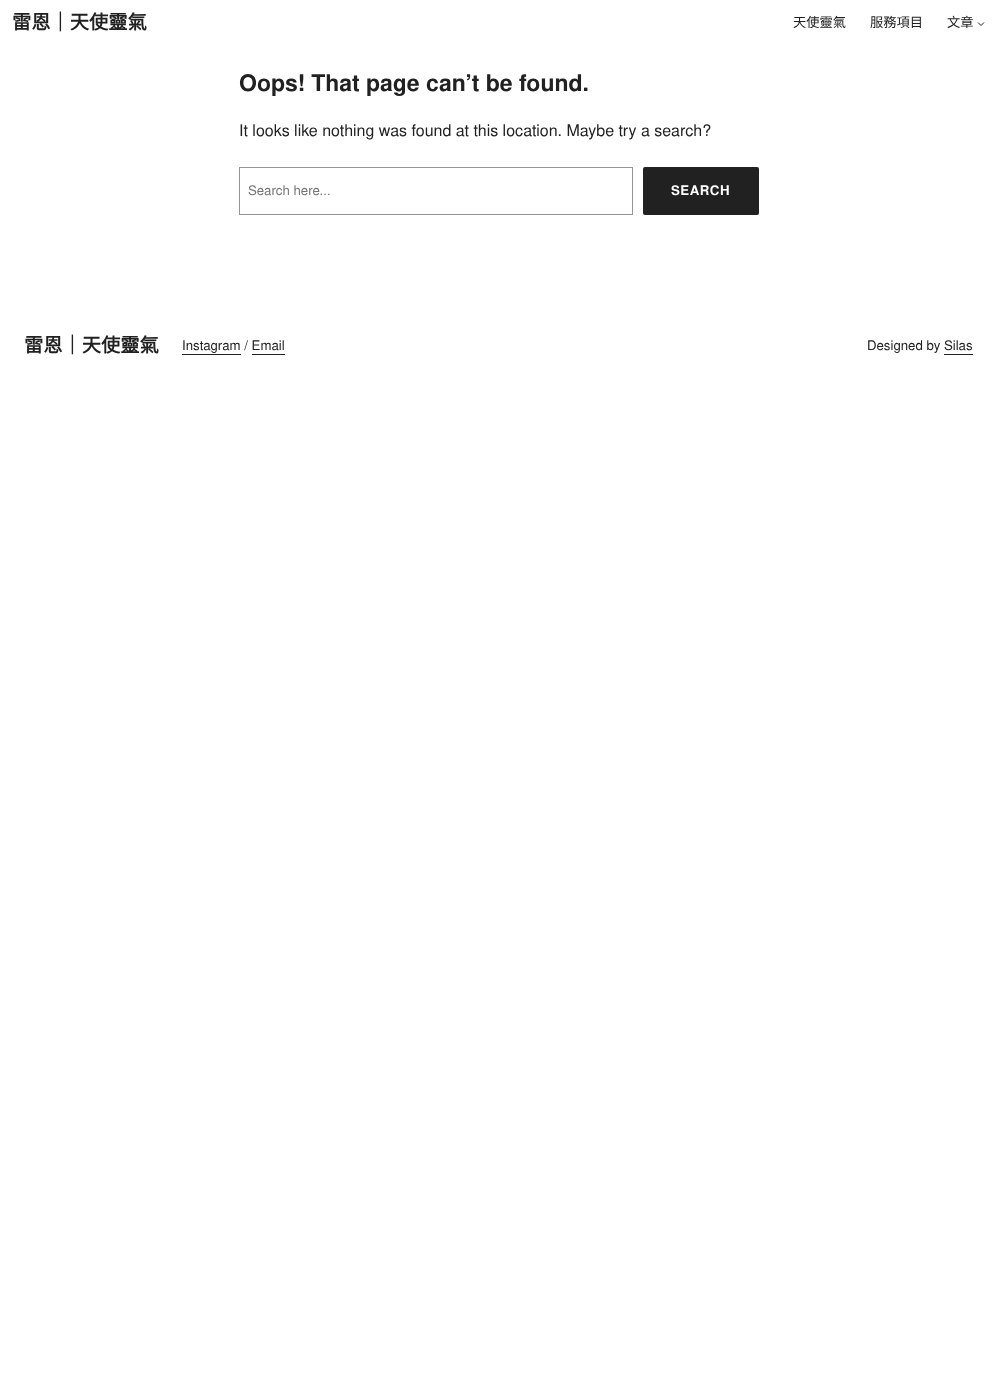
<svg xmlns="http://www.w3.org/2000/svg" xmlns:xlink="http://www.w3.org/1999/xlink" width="997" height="1397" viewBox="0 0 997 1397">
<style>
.cls-1{font:bold 19.25px Noto Sans CJK TC;fill:#212121}
.cls-2{font:13.25px Noto Sans CJK TC;fill:#212121}
.cls-3{font:bold 23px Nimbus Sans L;fill:#212121}
.cls-4{font:16px Nimbus Sans L;fill:#212121}
.cls-5{font:13.25px Nimbus Sans L;fill:#757575}
.cls-6{font:bold 13.25px Nimbus Sans L;letter-spacing:0.5px;fill:#ffffff}
.cls-7{font:13.25px Nimbus Sans L;fill:#212121}
</style>
<rect width="100%" height="100%" fill="#ffffff"/>
<path fill="none" stroke="#212121" d="M978 22.5L981 25.5L984 22.5"/>
<rect fill="none" stroke="#949494" x="239.5" y="167.5" width="393" height="47"/>
<rect fill="#212121" x="643" y="167" width="116" height="48" rx="2"/>
<rect fill="#212121" x="182" y="354" width="59" height="1"/>
<rect fill="#212121" x="252" y="354" width="33" height="1"/>
<rect fill="#212121" x="944" y="354" width="29" height="1"/>
<text class="cls-1" x="12" y="29">雷恩｜天使靈氣</text>
<text class="cls-2" x="793" y="27">天使靈氣</text>
<text class="cls-2" x="870" y="27">服務項目</text>
<text class="cls-2" x="947" y="27">文章</text>
<text class="cls-3" x="239" y="91">Oops! That page can’t be found.</text>
<text class="cls-4" x="239" y="136">It looks like nothing was found at this location. Maybe try a search?</text>
<text class="cls-5" x="248" y="195">Search here...</text>
<text class="cls-6" x="671" y="195">SEARCH</text>
<text class="cls-1" x="24" y="352">雷恩｜天使靈氣</text>
<text class="cls-7" x="182" y="350">Instagram / Email</text>
<text class="cls-7" x="867" y="350">Designed by Silas</text>
</svg>
